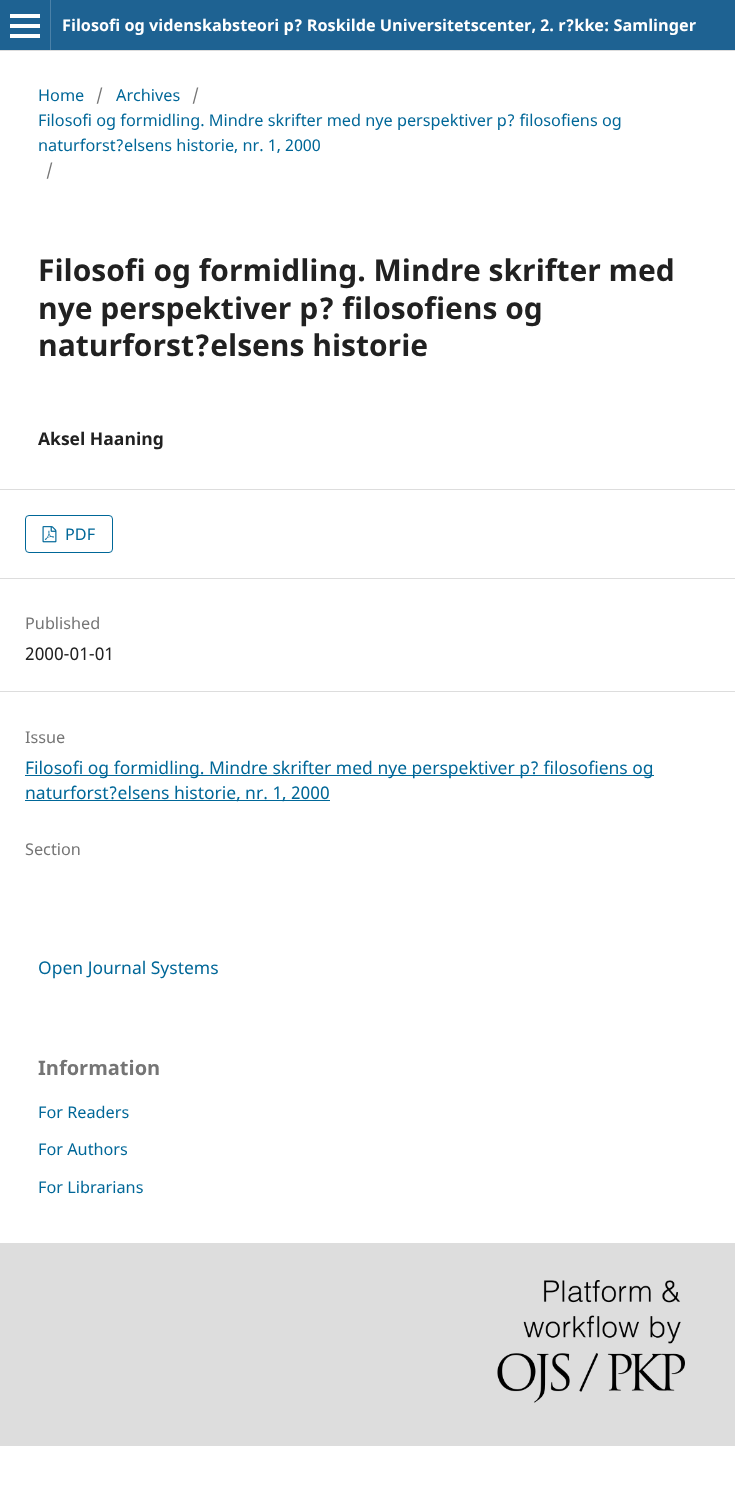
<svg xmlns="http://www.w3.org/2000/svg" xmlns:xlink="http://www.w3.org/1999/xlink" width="735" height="1494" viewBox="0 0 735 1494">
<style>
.cls-1{font:bold 16.25px Noto Sans;fill:#ffffff}
.cls-2{font:16.25px Noto Sans;fill:#006798}
.cls-3{font:16.25px Noto Sans;fill:#757575}
.cls-4{font:bold 30px Noto Sans;fill:#212121}
.cls-5{font:bold 17.5px Noto Sans;fill:#212121}
.cls-6{font:17.5px Noto Sans;fill:#212121}
.cls-7{font:17.5px Noto Sans;fill:#006798}
.cls-8{font:bold 20px Noto Sans;fill:#757575}
</style>
<rect width="100%" height="100%" fill="#ffffff"/>
<rect fill="#1e6292" x="0" y="0" width="735" height="50"/>
<rect fill="#dddddd" x="0" y="50" width="735" height="1"/>
<rect fill="#4b81a8" x="50" y="0" width="1" height="50"/>
<rect fill="#ffffff" x="10" y="34" width="30" height="4"/>
<rect fill="#ffffff" x="10" y="14" width="30" height="4"/>
<rect fill="#ffffff" x="10" y="24" width="30" height="4"/>
<rect fill="#dddddd" x="0" y="489" width="735" height="1"/>
<rect fill="#dddddd" x="0" y="578" width="735" height="1"/>
<rect fill="none" stroke="#006798" x="25.5" y="515.5" width="87" height="37" rx="3.5"/>
<image xlink:href="image0.png" x="42" y="526" width="15" height="17"/>
<rect fill="#dddddd" x="0" y="691" width="735" height="1"/>
<rect fill="#006798" x="25" y="775" width="629" height="1"/>
<rect fill="#006798" x="25" y="800" width="305" height="1"/>
<rect fill="#dddddd" x="0" y="1243" width="735" height="203"/>
<image xlink:href="image1.png" x="497" y="1280" width="188" height="123"/>
<text class="cls-1" x="62" y="31">Filosofi og videnskabsteori p? Roskilde Universitetscenter, 2. r?kke: Samlinger</text>
<text class="cls-2" x="38" y="101">Home</text>
<text class="cls-3" x="96" y="101">/</text>
<text class="cls-2" x="116" y="101">Archives</text>
<text class="cls-3" x="192" y="101">/</text>
<text class="cls-2"><tspan x="38" y="126">Filosofi og formidling. Mindre skrifter med nye perspektiver p? filosofiens og</tspan><tspan x="38" y="151">naturforst?elsens historie, nr. 1, 2000</tspan></text>
<text class="cls-3" x="46" y="176">/</text>
<text class="cls-4"><tspan x="38" y="281">Filosofi og formidling. Mindre skrifter med</tspan><tspan x="38" y="319">nye perspektiver p? filosofiens og</tspan><tspan x="38" y="356">naturforst?elsens historie</tspan></text>
<text class="cls-5" x="38" y="445">Aksel Haaning</text>
<text class="cls-2" x="65" y="540">PDF</text>
<text class="cls-3" x="25" y="629">Published</text>
<text class="cls-6" x="25" y="660">2000-01-01</text>
<text class="cls-3" x="25" y="743">Issue</text>
<text class="cls-7"><tspan x="25" y="774">Filosofi og formidling. Mindre skrifter med nye perspektiver p? filosofiens og</tspan><tspan x="25" y="799">naturforst?elsens historie, nr. 1, 2000</tspan></text>
<text class="cls-3" x="25" y="855">Section</text>
<text class="cls-7" x="38" y="974">Open Journal Systems</text>
<text class="cls-8" x="38" y="1075">Information</text>
<text class="cls-2" x="38" y="1118">For Readers</text>
<text class="cls-2" x="38" y="1155">For Authors</text>
<text class="cls-2" x="38" y="1193">For Librarians</text>
</svg>
